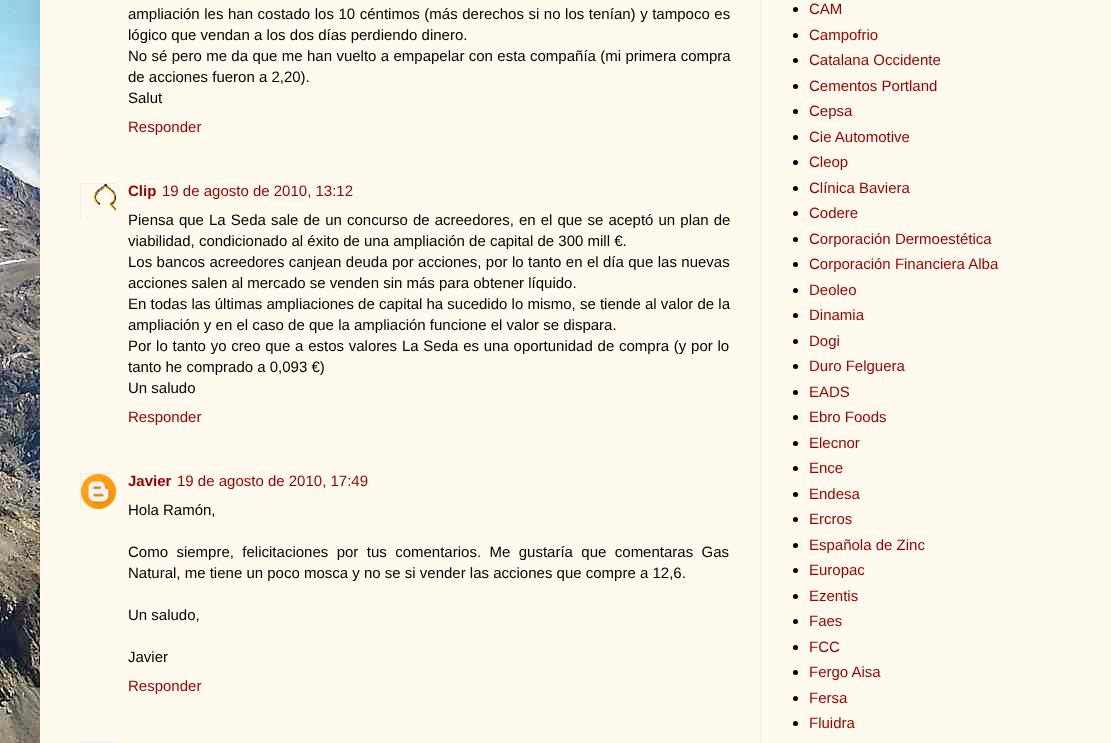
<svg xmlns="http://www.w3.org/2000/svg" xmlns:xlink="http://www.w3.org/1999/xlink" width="1111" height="743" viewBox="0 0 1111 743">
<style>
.cls-1{font:15px Liberation Sans;fill:#000000}
.cls-2{font:15px Liberation Sans;fill:#990000}
.cls-3{font:bold 15px Liberation Sans;fill:#990000}
</style>
<defs>
<clipPath id="clip1"><rect x="80" y="183" width="36" height="36"/></clipPath>
<clipPath id="clip2"><rect x="80" y="473" width="36" height="36"/></clipPath>
</defs>
<rect width="100%" height="100%" fill="#ffffff"/>
<image xlink:href="image0.png" x="0" y="0" width="40" height="743"/>
<rect fill="#000000" fill-opacity="0.15" filter="blur(20px)" x="40" y="-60" width="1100" height="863"/>
<rect fill="#fff9ee" x="40" y="0" width="1071" height="743"/>
<rect fill="#ededed" x="760" y="0" width="1" height="743"/>
<g clip-path="url(#clip1)">
<rect fill="none" stroke="#ededed" x="80.5" y="183.5" width="37" height="37"/>
</g>
<image xlink:href="image1.png" x="93" y="184" width="23" height="28"/>
<g clip-path="url(#clip2)">
<rect fill="none" stroke="#ededed" x="80.5" y="473.5" width="36" height="36"/>
</g>
<image xlink:href="image2.png" x="81" y="474" width="35" height="35"/>
<rect fill="none" stroke="#ededed" x="80.5" y="742.5" width="36" height="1"/>
<circle fill="#000000" cx="795.5" cy="9.5" r="2.5"/>
<circle fill="#000000" cx="795.5" cy="35.5" r="2.5"/>
<circle fill="#000000" cx="795.5" cy="60.5" r="2.5"/>
<circle fill="#000000" cx="795.5" cy="86.5" r="2.5"/>
<circle fill="#000000" cx="795.5" cy="111.5" r="2.5"/>
<circle fill="#000000" cx="795.5" cy="137.5" r="2.5"/>
<circle fill="#000000" cx="795.5" cy="162.5" r="2.5"/>
<circle fill="#000000" cx="795.5" cy="188.5" r="2.5"/>
<circle fill="#000000" cx="795.5" cy="213.5" r="2.5"/>
<circle fill="#000000" cx="795.5" cy="239.5" r="2.5"/>
<circle fill="#000000" cx="795.5" cy="264.5" r="2.5"/>
<circle fill="#000000" cx="795.5" cy="290.5" r="2.5"/>
<circle fill="#000000" cx="795.5" cy="315.5" r="2.5"/>
<circle fill="#000000" cx="795.5" cy="341.5" r="2.5"/>
<circle fill="#000000" cx="795.5" cy="366.5" r="2.5"/>
<circle fill="#000000" cx="795.5" cy="392.5" r="2.5"/>
<circle fill="#000000" cx="795.5" cy="417.5" r="2.5"/>
<circle fill="#000000" cx="795.5" cy="443.5" r="2.5"/>
<circle fill="#000000" cx="795.5" cy="468.5" r="2.5"/>
<circle fill="#000000" cx="795.5" cy="494.5" r="2.5"/>
<circle fill="#000000" cx="795.5" cy="519.5" r="2.5"/>
<circle fill="#000000" cx="795.5" cy="545.5" r="2.5"/>
<circle fill="#000000" cx="795.5" cy="570.5" r="2.5"/>
<circle fill="#000000" cx="795.5" cy="596.5" r="2.5"/>
<circle fill="#000000" cx="795.5" cy="621.5" r="2.5"/>
<circle fill="#000000" cx="795.5" cy="647.5" r="2.5"/>
<circle fill="#000000" cx="795.5" cy="672.5" r="2.5"/>
<circle fill="#000000" cx="795.5" cy="698.5" r="2.5"/>
<circle fill="#000000" cx="795.5" cy="723.5" r="2.5"/>
<text class="cls-1"><tspan x="128" y="19" word-spacing="0.4">ampliación les han costado los 10 céntimos (más derechos si no los tenían) y tampoco es</tspan><tspan x="128" y="40">lógico que vendan a los dos días perdiendo dinero.</tspan><tspan x="128" y="61" word-spacing="0.2">No sé pero me da que me han vuelto a empapelar con esta compañía (mi primera compra</tspan><tspan x="128" y="82">de acciones fueron a 2,20).</tspan><tspan x="128" y="103">Salut</tspan></text>
<text class="cls-2" x="128" y="132">Responder</text>
<text class="cls-3" x="128" y="196">Clip</text>
<text class="cls-2" x="162" y="196">19 de agosto de 2010, 13:12</text>
<text class="cls-1"><tspan x="128" y="225" word-spacing="0.9">Piensa que La Seda sale de un concurso de acreedores, en el que se aceptó un plan de</tspan><tspan x="128" y="246">viabilidad, condicionado al éxito de una ampliación de capital de 300 mill €.</tspan><tspan x="128" y="267" word-spacing="0.25">Los bancos acreedores canjean deuda por acciones, por lo tanto en el día que las nuevas</tspan><tspan x="128" y="288">acciones salen al mercado se venden sin más para obtener líquido.</tspan><tspan x="128" y="309">En todas las últimas ampliaciones de capital ha sucedido lo mismo, se tiende al valor de la</tspan><tspan x="128" y="330">ampliación y en el caso de que la ampliación funcione el valor se dispara.</tspan><tspan x="128" y="351" word-spacing="0.6">Por lo tanto yo creo que a estos valores La Seda es una oportunidad de compra (y por lo</tspan><tspan x="128" y="372">tanto he comprado a 0,093 €)</tspan><tspan x="128" y="393">Un saludo</tspan></text>
<text class="cls-2" x="128" y="422">Responder</text>
<text class="cls-3" x="128" y="486">Javier</text>
<text class="cls-2" x="177" y="486">19 de agosto de 2010, 17:49</text>
<text class="cls-1" x="128" y="515">Hola Ramón,</text>
<text class="cls-1"><tspan x="128" y="557" word-spacing="4.25">Como siempre, felicitaciones por tus comentarios. Me gustaría que comentaras Gas</tspan><tspan x="128" y="578">Natural, me tiene un poco mosca y no se si vender las acciones que compre a 12,6.</tspan></text>
<text class="cls-1" x="128" y="620">Un saludo,</text>
<text class="cls-1" x="128" y="662">Javier</text>
<text class="cls-2" x="128" y="691">Responder</text>
<text class="cls-2"><tspan x="809" y="14">CAM</tspan><tspan x="809" y="40">Campofrio</tspan><tspan x="809" y="65">Catalana Occidente</tspan><tspan x="809" y="91">Cementos Portland</tspan><tspan x="809" y="116">Cepsa</tspan><tspan x="809" y="142">Cie Automotive</tspan><tspan x="809" y="167">Cleop</tspan><tspan x="809" y="193">Clínica Baviera</tspan><tspan x="809" y="218">Codere</tspan><tspan x="809" y="244">Corporación Dermoestética</tspan><tspan x="809" y="269">Corporación Financiera Alba</tspan><tspan x="809" y="295">Deoleo</tspan><tspan x="809" y="320">Dinamia</tspan><tspan x="809" y="346">Dogi</tspan><tspan x="809" y="371">Duro Felguera</tspan><tspan x="809" y="397">EADS</tspan><tspan x="809" y="422">Ebro Foods</tspan><tspan x="809" y="448">Elecnor</tspan><tspan x="809" y="473">Ence</tspan><tspan x="809" y="499">Endesa</tspan><tspan x="809" y="524">Ercros</tspan><tspan x="809" y="550">Española de Zinc</tspan><tspan x="809" y="575">Europac</tspan><tspan x="809" y="601">Ezentis</tspan><tspan x="809" y="626">Faes</tspan><tspan x="809" y="652">FCC</tspan><tspan x="809" y="677">Fergo Aisa</tspan><tspan x="809" y="703">Fersa</tspan><tspan x="809" y="728">Fluidra</tspan></text>
</svg>
